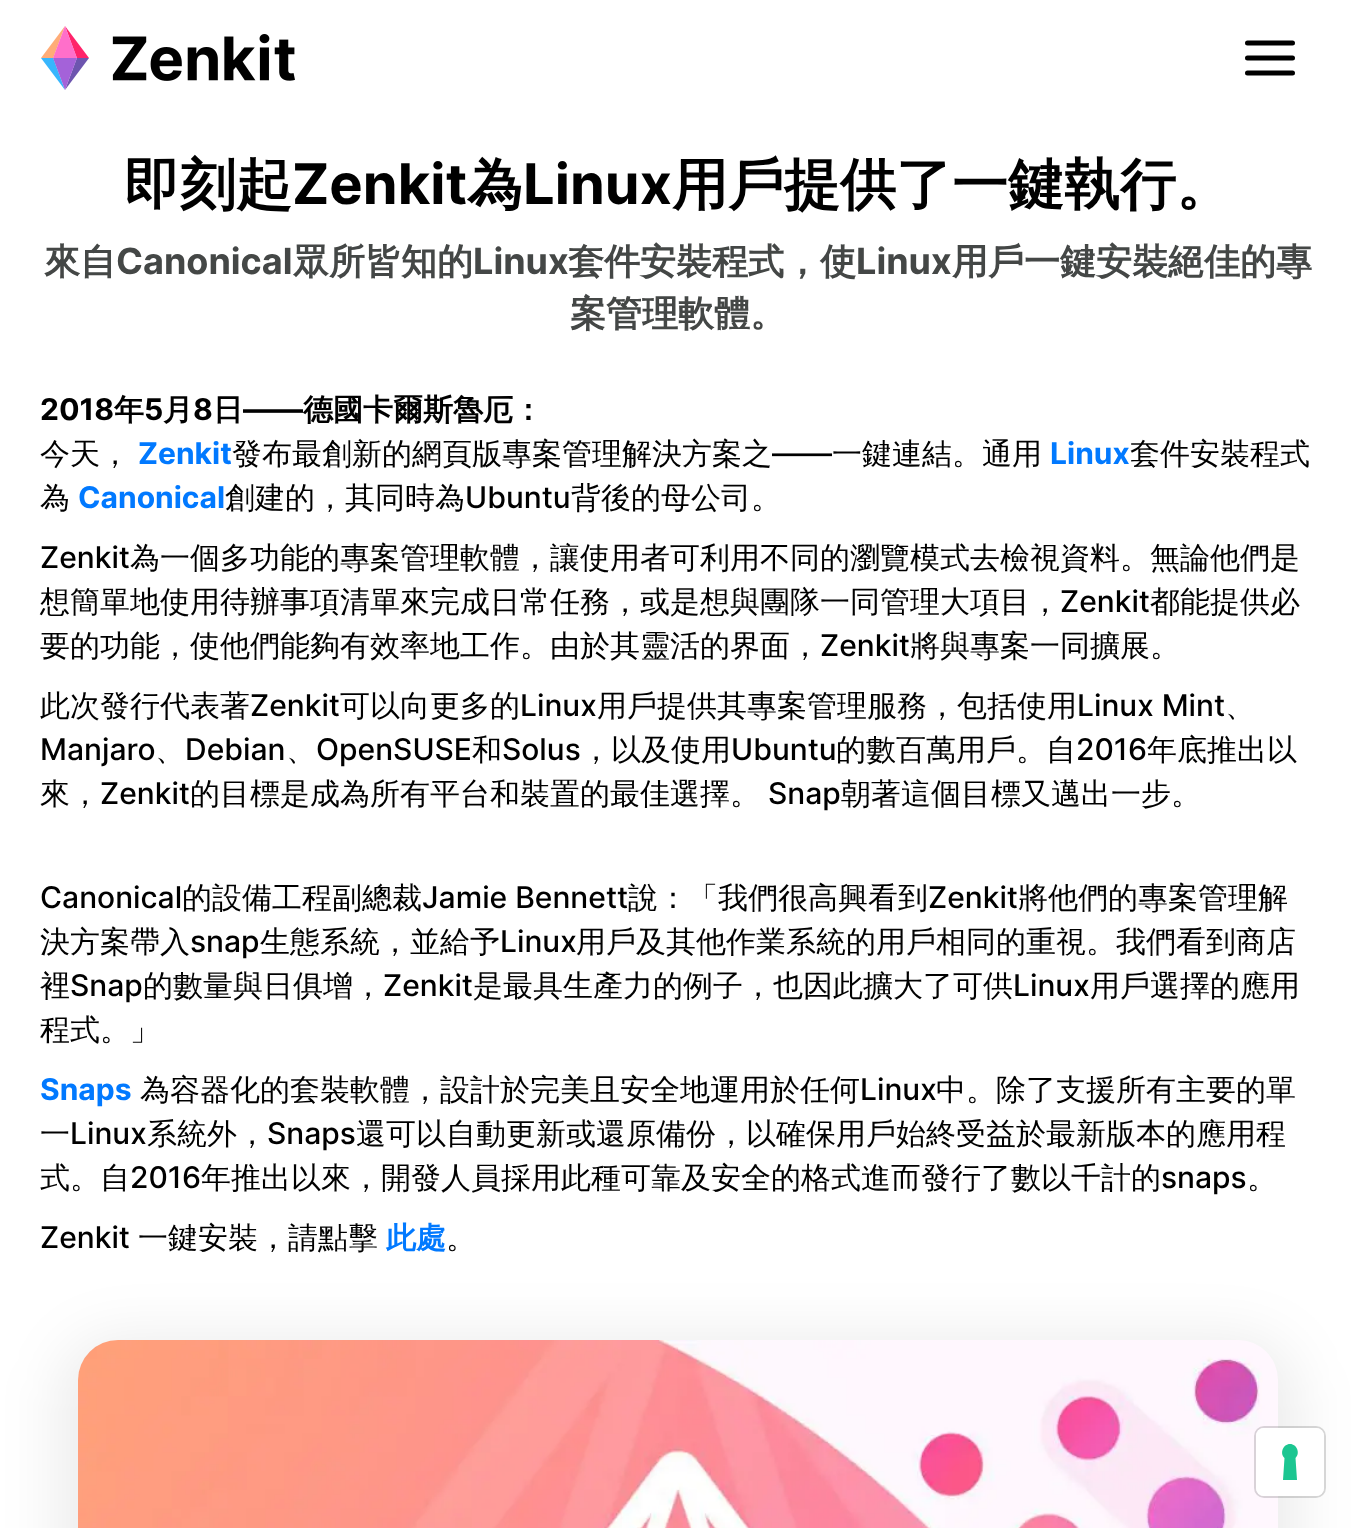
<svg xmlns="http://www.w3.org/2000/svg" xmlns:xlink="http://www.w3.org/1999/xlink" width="1355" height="1528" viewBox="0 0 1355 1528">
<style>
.cls-1{font:bold 56px WenQuanYi Zen Hei;fill:#000000}
.cls-2{font:bold 56px Inter;fill:#000000}
.cls-3{font:bold 36px WenQuanYi Zen Hei;fill:#444746}
.cls-4{font:bold 36px Inter;fill:#444746}
.cls-5{font:bold 30px Inter;fill:#000000}
.cls-6{font:bold 30px WenQuanYi Zen Hei;fill:#000000}
.cls-7{font:500 30px WenQuanYi Zen Hei;fill:#000000}
.cls-8{font:bold 30px Inter;fill:#0179ff}
.cls-9{font:500 30px Inter;fill:#000000}
.cls-10{font:bold 30px WenQuanYi Zen Hei;fill:#0179ff}
</style>
<rect width="100%" height="100%" fill="#ffffff"/>
<image xlink:href="image0.png" x="41" y="26" width="254" height="64"/>
<path fill="none" stroke="#000000" stroke-width="5" stroke-linecap="round" d="M1247.5 43H1292.5M1247.5 58H1292.5M1247.5 73H1292.5"/>
<rect fill="#000000" fill-opacity="0.08" filter="blur(30px)" x="60" y="1338" width="1236" height="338" rx="58"/>
<image xlink:href="image1.png" x="78" y="1340" width="1200" height="188"/>
<rect fill="none" stroke="#000000" stroke-opacity="0.15" stroke-width="2" x="1255" y="1427" width="70" height="70" rx="9"/>
<rect fill="#ffffff" x="1256" y="1428" width="68" height="68" rx="8"/>
<path fill="#1cc691" fill-rule="evenodd" d="M1290 1444C1297 1444 1300.5 1453.5 1295.5 1458L1297 1480H1283L1284.5 1458C1279.5 1453.5 1283 1444 1290 1444Z"/>
<text class="cls-1" x="124" y="204">即刻起</text>
<text class="cls-2" x="292" y="204">Zenkit</text>
<text class="cls-1" x="467" y="204">為</text>
<text class="cls-2" x="523" y="204">Linux</text>
<text class="cls-1" x="672" y="204">用戶提供了一鍵執行。</text>
<text class="cls-3" x="44" y="274">來自</text>
<text class="cls-4" x="116" y="274">Canonical</text>
<text class="cls-3" x="293" y="274">眾所皆知的</text>
<text class="cls-4" x="473" y="274">Linux</text>
<text class="cls-3" x="568" y="274">套件安裝程式，使</text>
<text class="cls-4" x="856" y="274">Linux</text>
<text class="cls-3" x="952" y="274">用戶一鍵安裝絕佳的專</text>
<text class="cls-3" x="570" y="326">案管理軟體。</text>
<text class="cls-5" x="40" y="420">2018</text>
<text class="cls-6" x="114" y="420">年</text>
<text class="cls-5" x="144" y="420">5</text>
<text class="cls-6" x="163" y="420">月</text>
<text class="cls-5" x="193" y="420">8</text>
<text class="cls-6" x="213" y="420">日</text>
<text class="cls-5" x="243" y="420">——</text>
<text class="cls-6" x="303" y="420">德國卡爾斯魯厄：</text>
<text class="cls-7" x="40" y="464">今天，</text>
<text class="cls-8" x="138" y="464">Zenkit</text>
<text class="cls-7" x="232" y="464">發布最創新的網頁版專案管理解決方案之</text>
<text class="cls-9" x="772" y="464">——</text>
<text class="cls-7" x="832" y="464">一鍵連結。通用</text>
<text class="cls-8" x="1050" y="464">Linux</text>
<text class="cls-7" x="1130" y="464">套件安裝程式</text>
<text class="cls-7" x="40" y="508">為</text>
<text class="cls-8" x="78" y="508">Canonical</text>
<text class="cls-7" x="225" y="508">創建的，其同時為</text>
<text class="cls-9" x="465" y="508">Ubuntu</text>
<text class="cls-7" x="571" y="508">背後的母公司。</text>
<text class="cls-9" x="40" y="568">Zenkit</text>
<text class="cls-7" x="130" y="568">為一個多功能的專案管理軟體，讓使用者可利用不同的瀏覽模式去檢視資料。無論他們是</text>
<text class="cls-7" x="40" y="612">想簡單地使用待辦事項清單來完成日常任務，或是想與團隊一同管理大項目，</text>
<text class="cls-9" x="1060" y="612">Zenkit</text>
<text class="cls-7" x="1150" y="612">都能提供必</text>
<text class="cls-7" x="40" y="656">要的功能，使他們能夠有效率地工作。由於其靈活的界面，</text>
<text class="cls-9" x="820" y="656">Zenkit</text>
<text class="cls-7" x="910" y="656">將與專案一同擴展。</text>
<text class="cls-7" x="40" y="716">此次發行代表著</text>
<text class="cls-9" x="250" y="716">Zenkit</text>
<text class="cls-7" x="340" y="716">可以向更多的</text>
<text class="cls-9" x="520" y="716">Linux</text>
<text class="cls-7" x="597" y="716">用戶提供其專案管理服務，包括使用</text>
<text class="cls-9" x="1077" y="716">Linux Mint</text>
<text class="cls-7" x="1225" y="716">、</text>
<text class="cls-9" x="40" y="760">Manjaro</text>
<text class="cls-7" x="155" y="760">、</text>
<text class="cls-9" x="185" y="760">Debian</text>
<text class="cls-7" x="286" y="760">、</text>
<text class="cls-9" x="316" y="760">OpenSUSE</text>
<text class="cls-7" x="472" y="760">和</text>
<text class="cls-9" x="502" y="760">Solus</text>
<text class="cls-7" x="581" y="760">，以及使用</text>
<text class="cls-9" x="731" y="760">Ubuntu</text>
<text class="cls-7" x="836" y="760">的數百萬用戶。自</text>
<text class="cls-9" x="1076" y="760">2016</text>
<text class="cls-7" x="1147" y="760">年底推出以</text>
<text class="cls-7" x="40" y="804">來，</text>
<text class="cls-9" x="100" y="804">Zenkit</text>
<text class="cls-7" x="190" y="804">的目標是成為所有平台和裝置的最佳選擇。</text>
<text class="cls-9" x="768" y="804">Snap</text>
<text class="cls-7" x="841" y="804">朝著這個目標又邁出一步。</text>
<text class="cls-9" x="40" y="908">Canonical</text>
<text class="cls-7" x="182" y="908">的設備工程副總裁</text>
<text class="cls-9" x="422" y="908">Jamie Bennett</text>
<text class="cls-7" x="628" y="908">說：「我們很高興看到</text>
<text class="cls-9" x="928" y="908">Zenkit</text>
<text class="cls-7" x="1018" y="908">將他們的專案管理解</text>
<text class="cls-7" x="40" y="952">決方案帶入</text>
<text class="cls-9" x="190" y="952">snap</text>
<text class="cls-7" x="260" y="952">生態系統，並給予</text>
<text class="cls-9" x="500" y="952">Linux</text>
<text class="cls-7" x="576" y="952">用戶及其他作業系統的用戶相同的重視。我們看到商店</text>
<text class="cls-7" x="40" y="996">裡</text>
<text class="cls-9" x="70" y="996">Snap</text>
<text class="cls-7" x="143" y="996">的數量與日俱增，</text>
<text class="cls-9" x="383" y="996">Zenkit</text>
<text class="cls-7" x="473" y="996">是最具生產力的例子，也因此擴大了可供</text>
<text class="cls-9" x="1013" y="996">Linux</text>
<text class="cls-7" x="1090" y="996">用戶選擇的應用</text>
<text class="cls-7" x="40" y="1040">程式。」</text>
<text class="cls-8" x="40" y="1100">Snaps</text>
<text class="cls-7" x="140" y="1100">為容器化的套裝軟體，設計於完美且安全地運用於任何</text>
<text class="cls-9" x="860" y="1100">Linux</text>
<text class="cls-7" x="936" y="1100">中。除了支援所有主要的單</text>
<text class="cls-7" x="40" y="1144">一</text>
<text class="cls-9" x="70" y="1144">Linux</text>
<text class="cls-7" x="147" y="1144">系統外，</text>
<text class="cls-9" x="267" y="1144">Snaps</text>
<text class="cls-7" x="356" y="1144">還可以自動更新或還原備份，以確保用戶始終受益於最新版本的應用程</text>
<text class="cls-7" x="40" y="1188">式。自</text>
<text class="cls-9" x="130" y="1188">2016</text>
<text class="cls-7" x="201" y="1188">年推出以來，開發人員採用此種可靠及安全的格式進而發行了數以千計的</text>
<text class="cls-9" x="1161" y="1188">snaps</text>
<text class="cls-7" x="1247" y="1188">。</text>
<text class="cls-9" x="40" y="1248">Zenkit</text>
<text class="cls-7" x="138" y="1248">一鍵安裝，請點擊</text>
<text class="cls-10" x="386" y="1248">此處</text>
<text class="cls-7" x="446" y="1248">。</text>
</svg>
